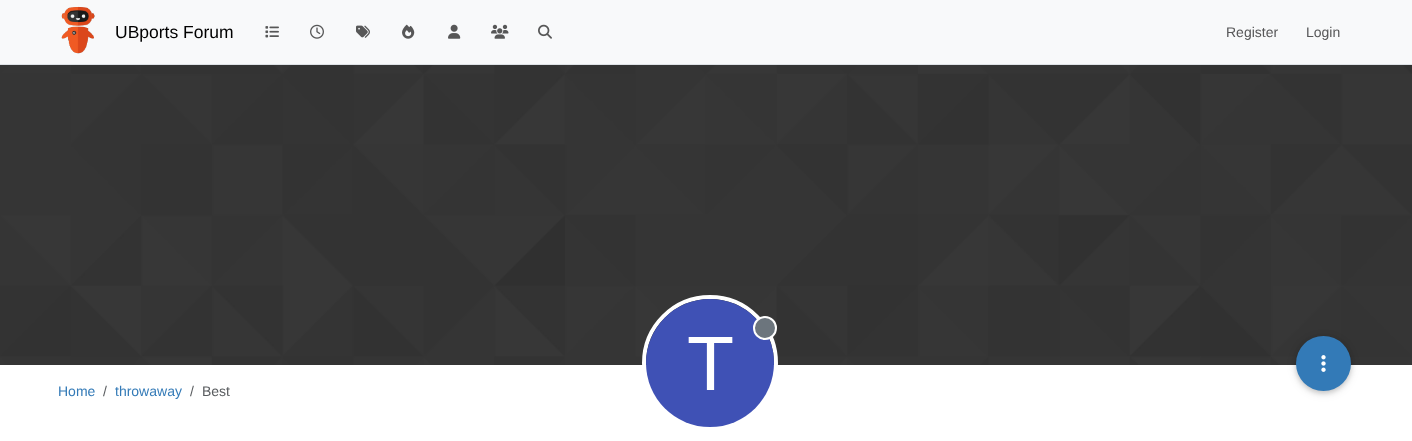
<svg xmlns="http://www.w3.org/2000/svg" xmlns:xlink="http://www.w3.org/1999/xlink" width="1412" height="441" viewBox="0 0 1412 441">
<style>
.cls-1{font:17.5px Liberation Sans;fill:#000000}
.cls-2{font:14px Liberation Sans;fill:#575758}
.cls-3{font:77px Liberation Sans;fill:#ffffff}
.cls-4{font:14px Liberation Sans;fill:#337ab7}
.cls-5{font:14px Liberation Sans;fill:#595c5f}
</style>
<rect width="100%" height="100%" fill="#ffffff"/>
<rect fill="#f8f9fa" x="0" y="0" width="1412" height="64"/>
<rect fill="#dee2e6" x="0" y="64" width="1412" height="1"/>
<image xlink:href="image0.png" x="61" y="6" width="34" height="48"/>
<image xlink:href="image1.png" x="265" y="26" width="14" height="12"/>
<image xlink:href="image2.png" x="310" y="24" width="14" height="15"/>
<image xlink:href="image3.png" x="356" y="25" width="14" height="13"/>
<image xlink:href="image4.png" x="402" y="24" width="13" height="15"/>
<image xlink:href="image5.png" x="448" y="24" width="13" height="15"/>
<image xlink:href="image6.png" x="491" y="24" width="18" height="15"/>
<image xlink:href="image7.png" x="538" y="24" width="14" height="15"/>
<image xlink:href="image8.png" x="0" y="65" width="1412" height="300"/>
<circle fill="none" stroke="#ffffff" stroke-width="4" cx="710" cy="363" r="66"/>
<circle fill="#3f51b5" cx="710" cy="363" r="64"/>
<circle fill="#6c757d" stroke="#ffffff" stroke-width="2" cx="765" cy="328" r="11"/>
<rect fill="#000000" fill-opacity="0.12" filter="blur(5px)" x="1296" y="338" width="55" height="55" rx="27.5"/>
<rect fill="#000000" fill-opacity="0.16" filter="blur(2.5px)" x="1296" y="338" width="55" height="55" rx="27.5"/>
<circle fill="#337ab7" cx="1323.5" cy="363.5" r="27.5"/>
<image xlink:href="image9.png" x="1321" y="355" width="5" height="17"/>
<text class="cls-1" x="115" y="38">UBports Forum</text>
<text class="cls-2" x="1226" y="37">Register</text>
<text class="cls-2" x="1306" y="37">Login</text>
<text class="cls-3" x="687" y="390">T</text>
<text class="cls-4" x="58" y="396">Home</text>
<text class="cls-5" x="103" y="396">/</text>
<text class="cls-4" x="115" y="396">throwaway</text>
<text class="cls-5" x="190" y="396">/</text>
<text class="cls-5" x="202" y="396">Best</text>
</svg>
